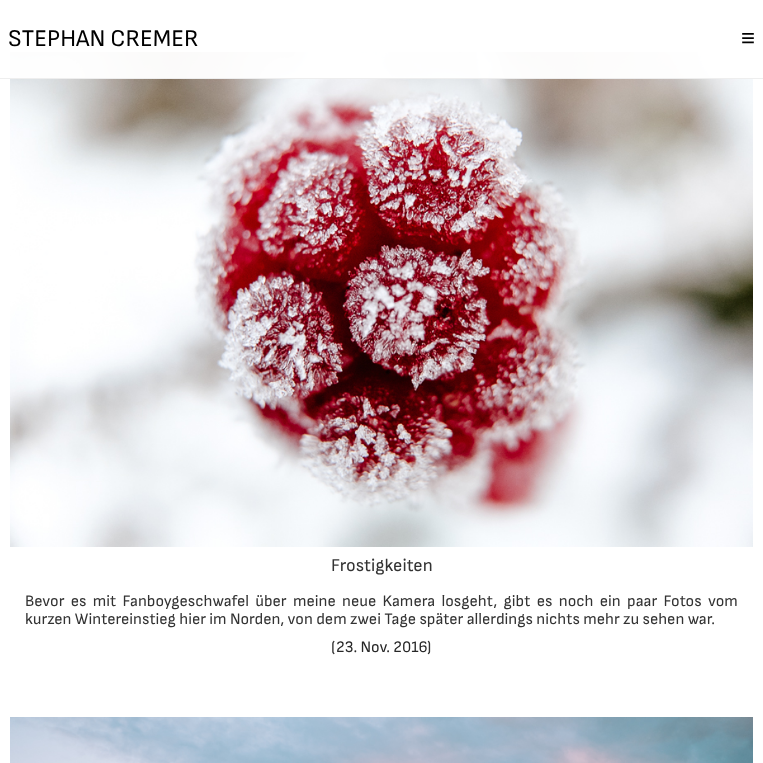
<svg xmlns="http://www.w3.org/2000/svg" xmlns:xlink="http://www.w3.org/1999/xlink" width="763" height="763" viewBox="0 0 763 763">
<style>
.cls-1{font:24px Sofia Sans;fill:#000000}
.cls-2{font:24px Liberation Sans;fill:#000000}
.cls-3{font:18px Sofia Sans;fill:#333333}
.cls-4{font:16px Sofia Sans;fill:#333333}
.cls-5{font:16px Sofia Sans;fill:#272727}
</style>
<rect width="100%" height="100%" fill="#ffffff"/>
<image xlink:href="image0.png" x="10" y="52" width="743" height="495"/>
<rect fill="#ffffff" fill-opacity="0.97" x="10" y="52" width="743" height="26"/>
<rect fill="#eeeeee" x="0" y="78" width="763" height="1"/>
<image xlink:href="image1.png" x="10" y="717" width="743" height="46"/>
<text class="cls-1" x="8" y="46">STEPHAN CREMER</text>
<text class="cls-2" x="741" y="46">≡</text>
<text class="cls-3" x="331" y="571">Frostigkeiten</text>
<text class="cls-4"><tspan x="25" y="606" word-spacing="3">Bevor es mit Fanboygeschwafel über meine neue Kamera losgeht, gibt es noch ein paar Fotos vom</tspan><tspan x="25" y="624">kurzen Wintereinstieg hier im Norden, von dem zwei Tage später allerdings nichts mehr zu sehen war.</tspan></text>
<text class="cls-4" x="331" y="652">(</text>
<text class="cls-5" x="336" y="652">23. Nov. 2016</text>
<text class="cls-4" x="427" y="652">)</text>
</svg>
